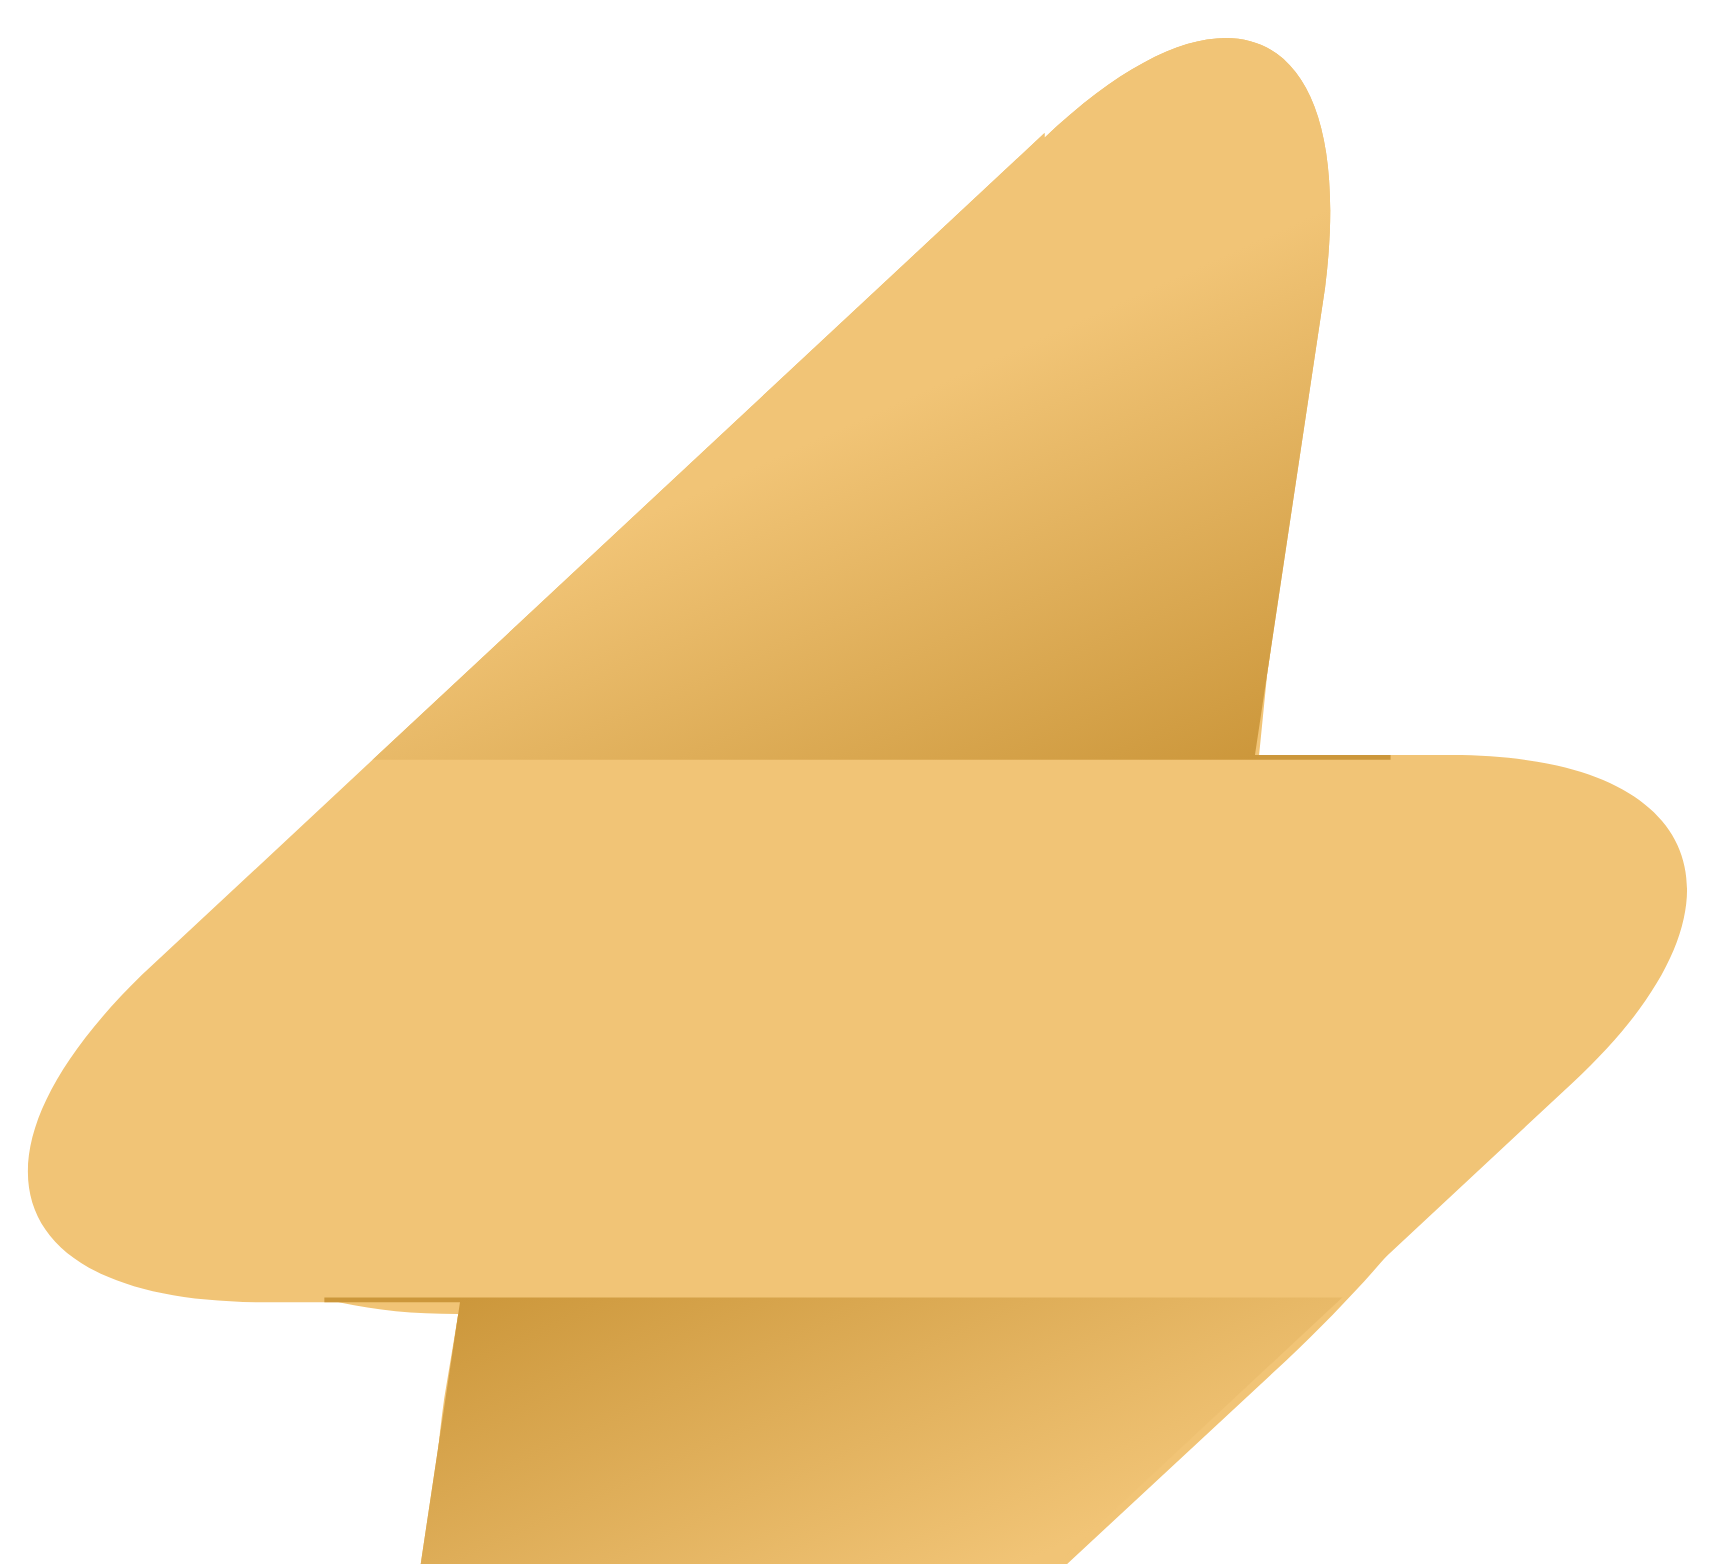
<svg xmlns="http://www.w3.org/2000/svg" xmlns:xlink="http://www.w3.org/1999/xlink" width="1710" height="1564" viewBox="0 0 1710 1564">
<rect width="100%" height="100%" fill="#ffffff"/>
<image xlink:href="image0.png" x="27" y="38" width="1660" height="1526"/>
</svg>
